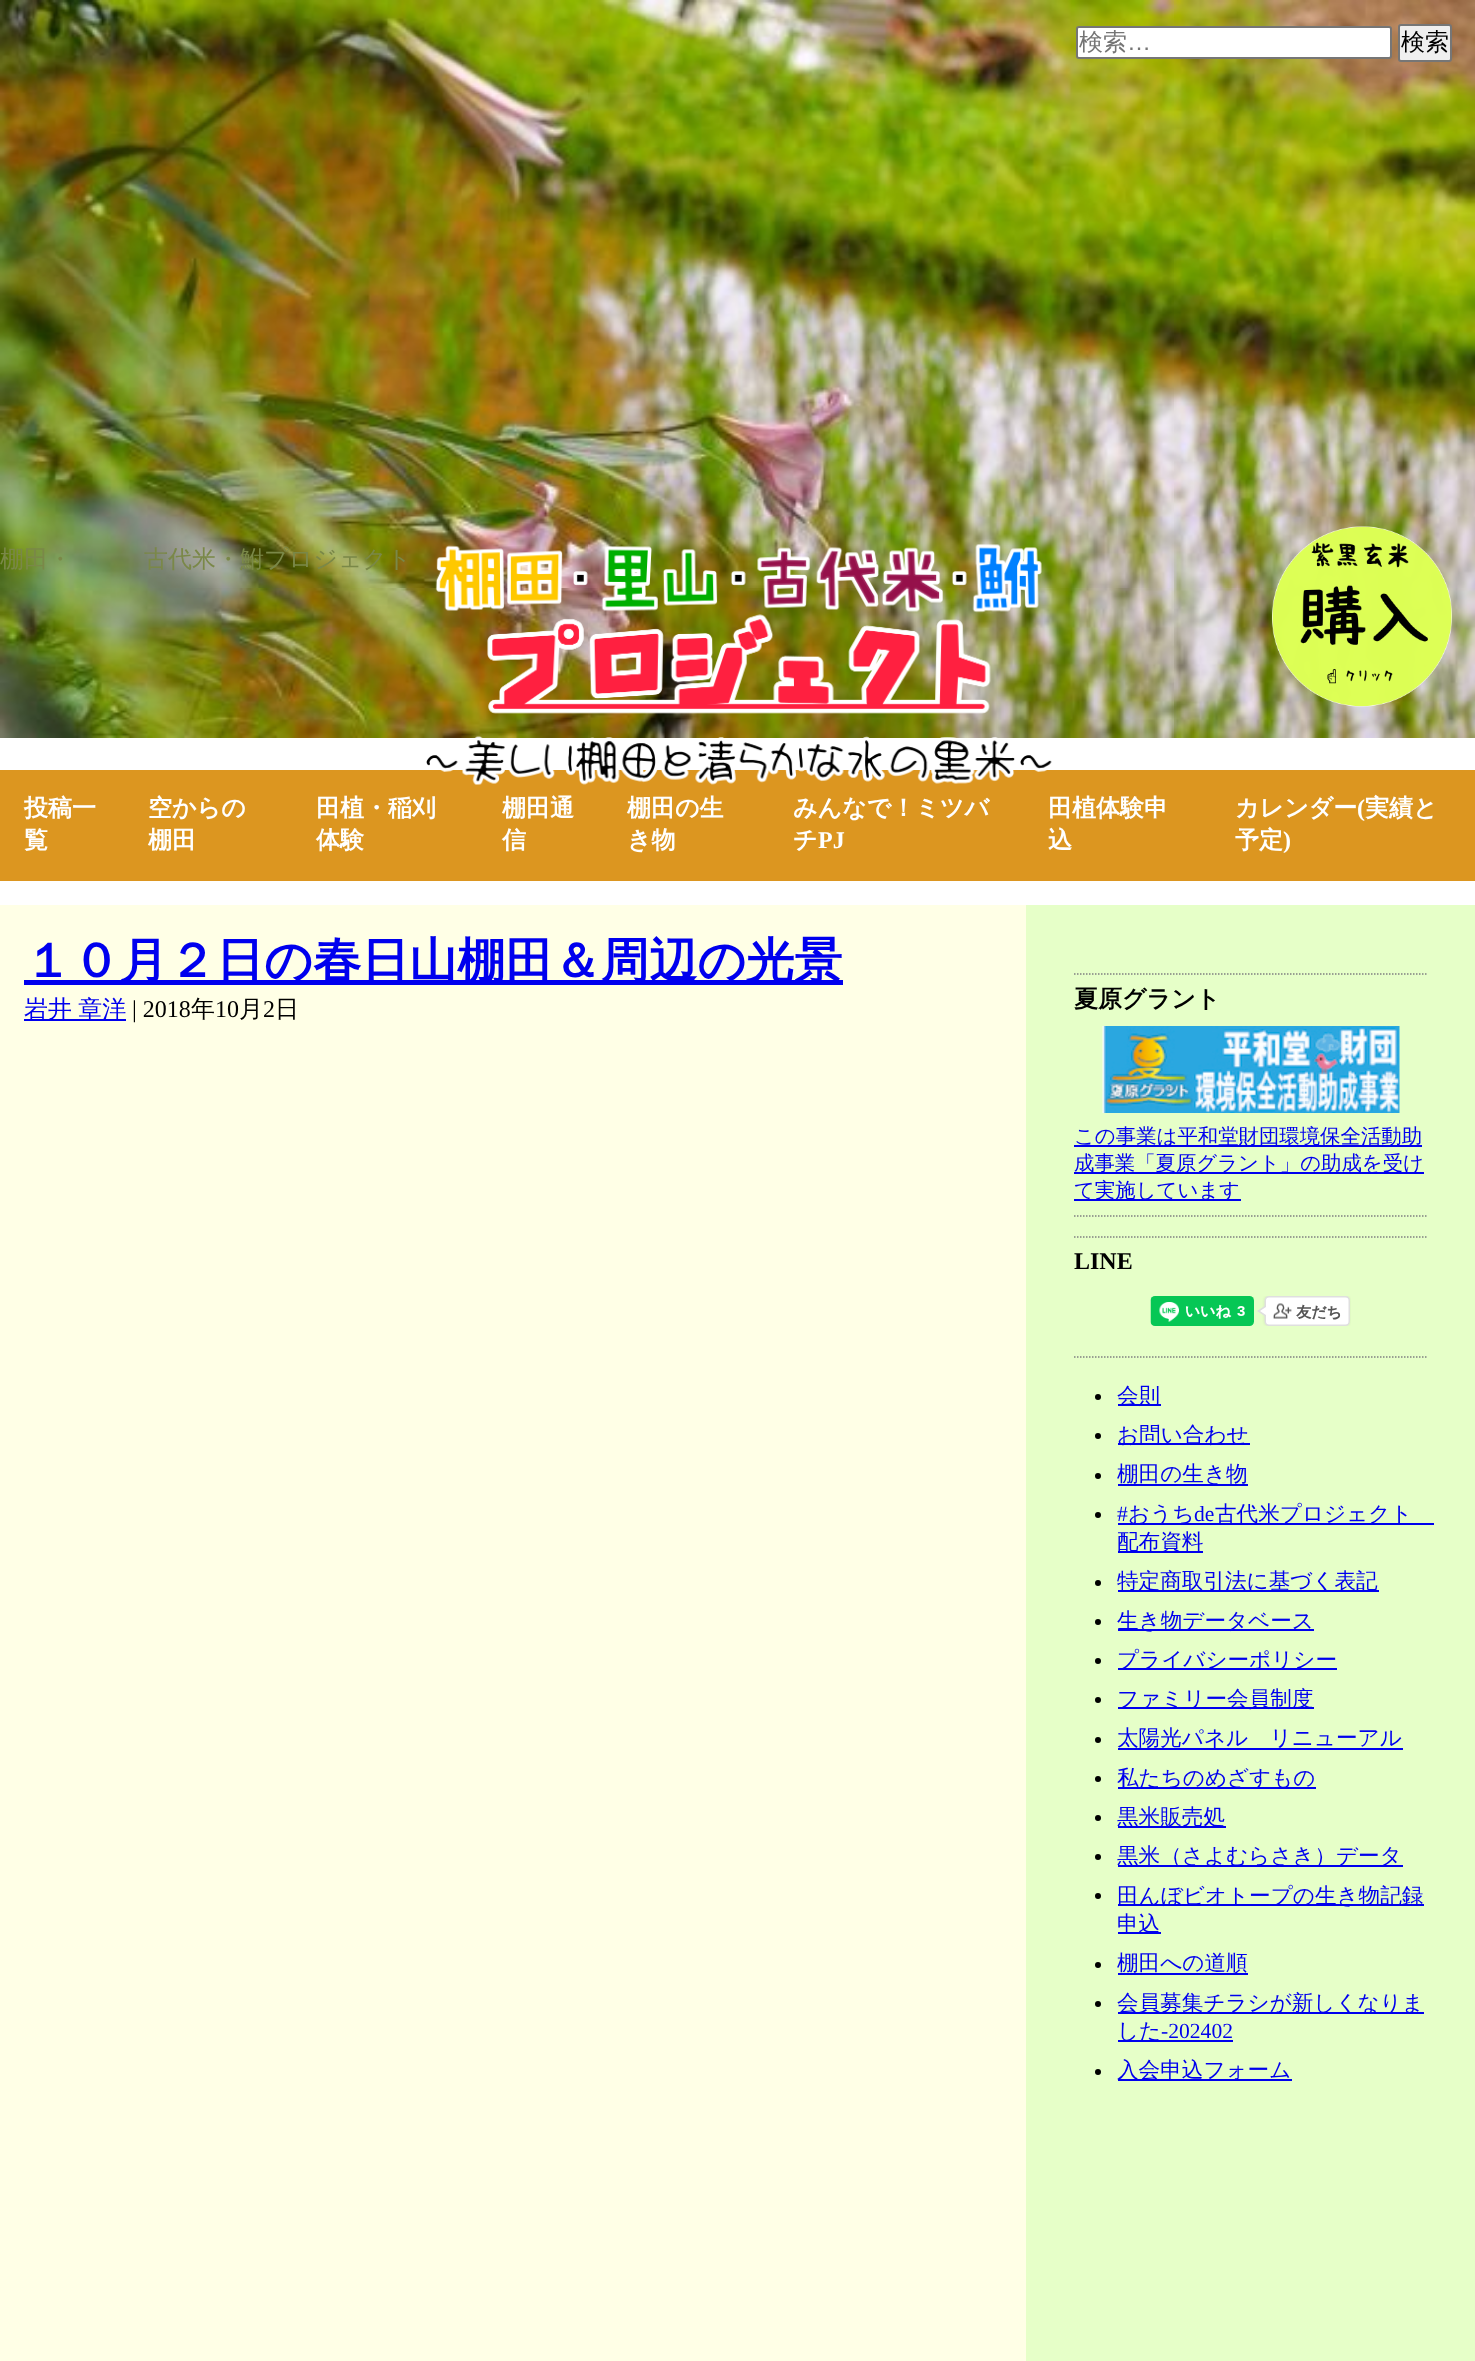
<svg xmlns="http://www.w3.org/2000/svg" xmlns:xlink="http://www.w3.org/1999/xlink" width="1475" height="2361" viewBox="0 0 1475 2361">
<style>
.cls-1{font:500 24px WenQuanYi Zen Hei;fill:#757575}
.cls-2{font:24px Liberation Sans;fill:#757575}
.cls-3{font:500 24px WenQuanYi Zen Hei;fill:#000000}
.cls-4{font:500 24px WenQuanYi Zen Hei;fill:#7a8848}
.cls-5{font:bold 24px WenQuanYi Zen Hei;fill:#ffffff}
.cls-6{font:bold 24px Liberation Serif;fill:#ffffff}
.cls-7{font:bold 48px WenQuanYi Zen Hei;fill:#0000ee}
.cls-8{font:500 24px WenQuanYi Zen Hei;fill:#0000ee}
.cls-9{font:24px Liberation Serif;fill:#000000}
.cls-10{font:bold 24px WenQuanYi Zen Hei;fill:#000000}
.cls-11{font:500 20.4px WenQuanYi Zen Hei;fill:#0000ee}
.cls-12{font:bold 24px Liberation Serif;fill:#000000}
.cls-13{font:500 21.6px WenQuanYi Zen Hei;fill:#0000ee}
.cls-14{font:21.6px Liberation Serif;fill:#0000ee}
</style>
<rect width="100%" height="100%" fill="#ffffff"/>
<image xlink:href="image0.png" x="0" y="0" width="1475" height="738"/>
<rect fill="#ffffff" stroke="#767676" stroke-width="2" x="1077" y="27" width="314" height="31" rx="2"/>
<rect fill="#efefef" stroke="#767676" stroke-width="2" x="1399" y="25" width="52" height="36" rx="2"/>
<rect fill="#dc9620" x="0" y="770" width="1475" height="111"/>
<image xlink:href="image1.png" x="426" y="544" width="626" height="241"/>
<image xlink:href="image2.png" x="1272" y="526" width="180" height="181"/>
<rect fill="#ffffe6" x="0" y="905" width="1026" height="1456"/>
<rect fill="#0000ee" x="24" y="980" width="819" height="5"/>
<rect fill="#0000ee" x="24" y="1019" width="102" height="2"/>
<rect fill="#e6ffc8" x="1026" y="905" width="449" height="1456"/>
<path fill="none" stroke="#808080" stroke-width="1.5" stroke-dasharray="1.5 1.5" d="M1074 974H1428"/>
<path fill="none" stroke="#808080" stroke-width="1.5" stroke-dasharray="1.5 1.5" d="M1074 1216H1428"/>
<image xlink:href="image3.png" x="1102" y="1026" width="298" height="87"/>
<rect fill="#0000ee" x="1074" y="1145" width="348" height="2"/>
<rect fill="#0000ee" x="1074" y="1172" width="350" height="2"/>
<rect fill="#0000ee" x="1074" y="1199" width="167" height="2"/>
<path fill="none" stroke="#808080" stroke-width="1.5" stroke-dasharray="1.5 1.5" d="M1074 1237H1428"/>
<path fill="none" stroke="#808080" stroke-width="1.5" stroke-dasharray="1.5 1.5" d="M1074 1357H1428"/>
<image xlink:href="image4.png" x="1150" y="1296" width="201" height="30"/>
<circle fill="#000000" cx="1098" cy="1397" r="3"/>
<rect fill="#0000ee" x="1118" y="1404" width="43" height="2"/>
<circle fill="#000000" cx="1098" cy="1436" r="3"/>
<rect fill="#0000ee" x="1118" y="1443" width="132" height="2"/>
<circle fill="#000000" cx="1098" cy="1476" r="3"/>
<rect fill="#0000ee" x="1118" y="1484" width="130" height="2"/>
<circle fill="#000000" cx="1098" cy="1515" r="3"/>
<rect fill="#0000ee" x="1118" y="1523" width="316" height="2"/>
<rect fill="#0000ee" x="1118" y="1551" width="85" height="2"/>
<circle fill="#000000" cx="1098" cy="1583" r="3"/>
<rect fill="#0000ee" x="1118" y="1590" width="261" height="2"/>
<circle fill="#000000" cx="1098" cy="1622" r="3"/>
<rect fill="#0000ee" x="1118" y="1629" width="196" height="2"/>
<circle fill="#000000" cx="1098" cy="1661" r="3"/>
<rect fill="#0000ee" x="1118" y="1668" width="219" height="2"/>
<circle fill="#000000" cx="1098" cy="1700" r="3"/>
<rect fill="#0000ee" x="1118" y="1707" width="196" height="2"/>
<circle fill="#000000" cx="1098" cy="1740" r="3"/>
<rect fill="#0000ee" x="1118" y="1748" width="285" height="2"/>
<circle fill="#000000" cx="1098" cy="1779" r="3"/>
<rect fill="#0000ee" x="1118" y="1787" width="198" height="2"/>
<circle fill="#000000" cx="1098" cy="1818" r="3"/>
<rect fill="#0000ee" x="1118" y="1826" width="108" height="2"/>
<circle fill="#000000" cx="1098" cy="1857" r="3"/>
<rect fill="#0000ee" x="1118" y="1865" width="285" height="2"/>
<circle fill="#000000" cx="1098" cy="1896" r="3"/>
<rect fill="#0000ee" x="1118" y="1904" width="306" height="2"/>
<rect fill="#0000ee" x="1118" y="1932" width="43" height="2"/>
<circle fill="#000000" cx="1098" cy="1965" r="3"/>
<rect fill="#0000ee" x="1118" y="1973" width="130" height="2"/>
<circle fill="#000000" cx="1098" cy="2004" r="3"/>
<rect fill="#0000ee" x="1118" y="2012" width="306" height="2"/>
<rect fill="#0000ee" x="1118" y="2040" width="115" height="2"/>
<circle fill="#000000" cx="1098" cy="2072" r="3"/>
<rect fill="#0000ee" x="1118" y="2079" width="174" height="2"/>
<text class="cls-1" x="1079" y="50">検索</text>
<text class="cls-2" x="1127" y="50">…</text>
<text class="cls-3" x="1401" y="50">検索</text>
<text class="cls-4" x="0" y="567">棚田・</text>
<text class="cls-4" x="144" y="567">古代米・鮒プロジェクト</text>
<text class="cls-5"><tspan x="24" y="816">投稿一</tspan><tspan x="24" y="848">覧</tspan></text>
<text class="cls-5"><tspan x="148" y="816">空からの</tspan><tspan x="148" y="848">棚田</tspan></text>
<text class="cls-5"><tspan x="316" y="816">田植・稲刈</tspan><tspan x="316" y="848">体験</tspan></text>
<text class="cls-5"><tspan x="502" y="816">棚田通</tspan><tspan x="502" y="848">信</tspan></text>
<text class="cls-5"><tspan x="627" y="816">棚田の生</tspan><tspan x="627" y="848">き物</tspan></text>
<text class="cls-5"><tspan x="793" y="816">みんなで！ミツバ</tspan><tspan x="793" y="848">チ</tspan></text>
<text class="cls-6" x="818" y="848">PJ</text>
<text class="cls-5"><tspan x="1048" y="816">田植体験申</tspan><tspan x="1048" y="848">込</tspan></text>
<text class="cls-5" x="1235" y="816">カレンダー</text>
<text class="cls-6" x="1357" y="816">(</text>
<text class="cls-5" x="1365" y="816">実績と</text>
<text class="cls-5" x="1235" y="848">予定</text>
<text class="cls-6" x="1283" y="848">)</text>
<text class="cls-7" x="24" y="977">１０月２日の春日山棚田＆周辺の光景</text>
<text class="cls-8" x="24" y="1017" word-spacing="-1">岩井 章洋</text>
<text class="cls-9" x="132" y="1017">| 2018</text>
<text class="cls-3" x="191" y="1017">年</text>
<text class="cls-9" x="215" y="1017">10</text>
<text class="cls-3" x="239" y="1017">月</text>
<text class="cls-9" x="263" y="1017">2</text>
<text class="cls-3" x="275" y="1017">日</text>
<text class="cls-10" x="1074" y="1007">夏原グラント</text>
<text class="cls-11"><tspan x="1074" y="1143">この事業は平和堂財団環境保全活動助</tspan><tspan x="1074" y="1170">成事業「夏原グラント」の助成を受け</tspan><tspan x="1074" y="1197">て実施しています</tspan></text>
<text class="cls-12" x="1074" y="1269">LINE</text>
<text class="cls-13"><tspan x="1117" y="1403">会則</tspan><tspan x="1117" y="1442">お問い合わせ</tspan><tspan x="1117" y="1481">棚田の生き物</tspan></text>
<text class="cls-14" x="1117" y="1521">#</text>
<text class="cls-13" x="1128" y="1521">おうち</text>
<text class="cls-14" x="1194" y="1521">de</text>
<text class="cls-13" x="1215" y="1521">古代米プロジェクト</text>
<text class="cls-13"><tspan x="1117" y="1549">配布資料</tspan><tspan x="1117" y="1588">特定商取引法に基づく表記</tspan><tspan x="1117" y="1628">生き物データベース</tspan><tspan x="1117" y="1667">プライバシーポリシー</tspan><tspan x="1117" y="1706">ファミリー会員制度</tspan><tspan x="1117" y="1745">太陽光パネル　リニューアル</tspan><tspan x="1117" y="1785">私たちのめざすもの</tspan><tspan x="1117" y="1824">黒米販売処</tspan><tspan x="1117" y="1863">黒米（さよむらさき）データ</tspan><tspan x="1117" y="1903">田んぼビオトープの生き物記録</tspan><tspan x="1117" y="1931">申込</tspan><tspan x="1117" y="1970">棚田への道順</tspan><tspan x="1117" y="2010">会員募集チラシが新しくなりま</tspan><tspan x="1117" y="2038">した</tspan></text>
<text class="cls-14" x="1161" y="2038">-202402</text>
<text class="cls-13" x="1117" y="2077">入会申込フォーム</text>
</svg>
